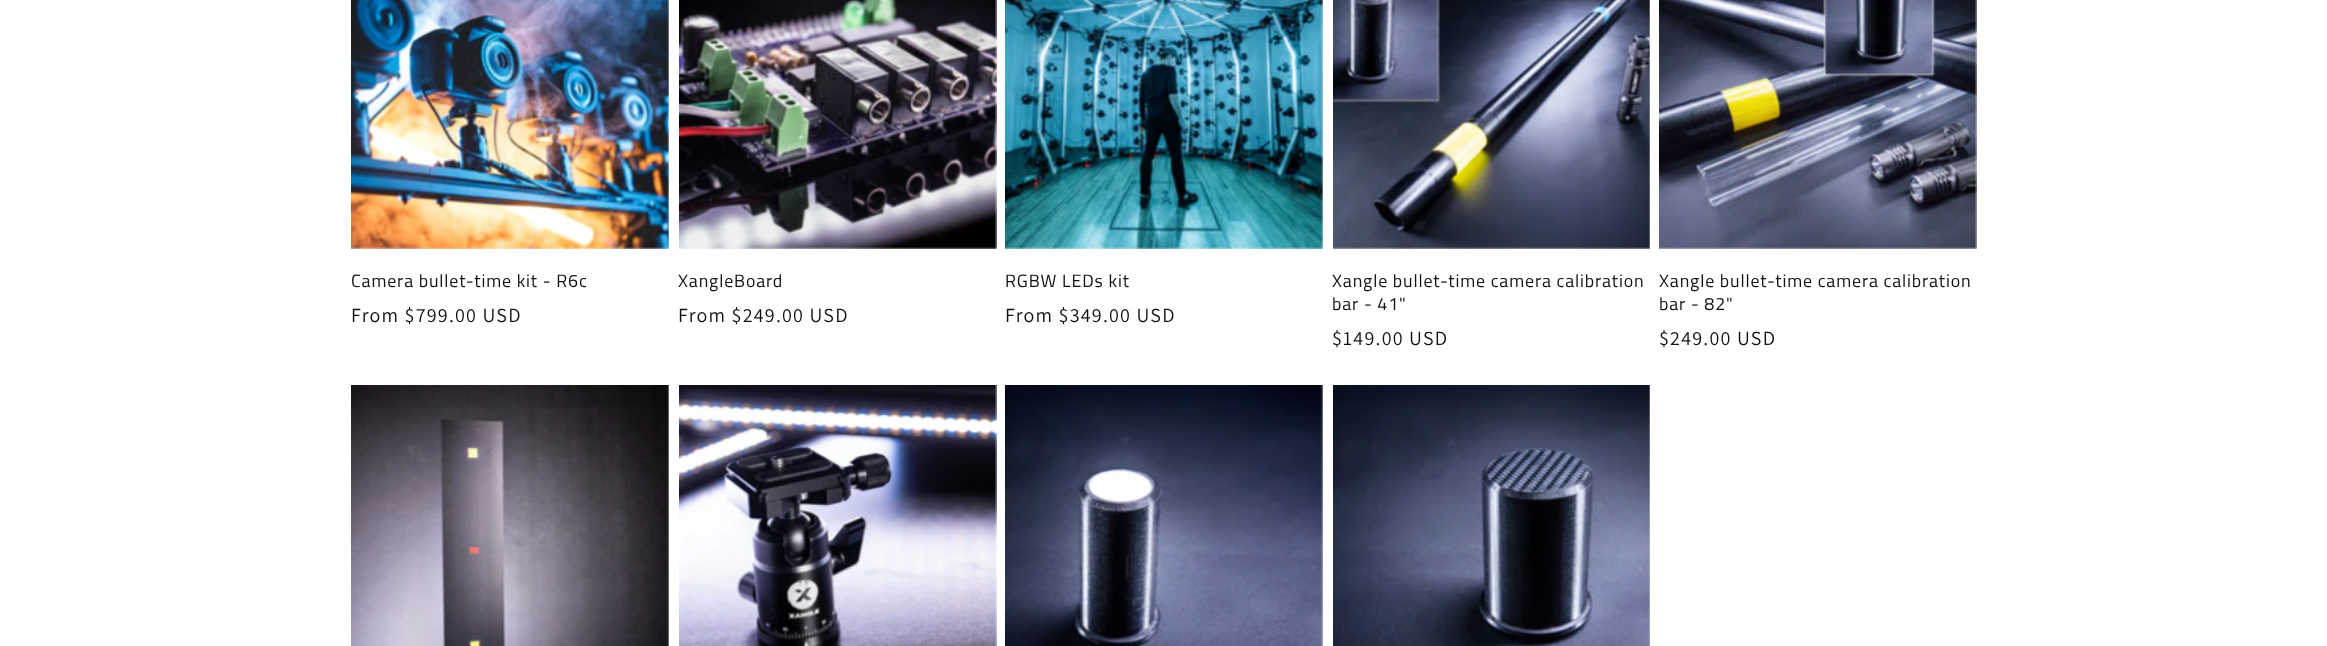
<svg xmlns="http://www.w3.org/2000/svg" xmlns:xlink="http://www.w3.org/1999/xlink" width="2327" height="646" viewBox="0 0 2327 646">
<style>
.cls-1{font:17.9px Titillium Web;letter-spacing:0.85px;fill:#121212}
.cls-2{font:20px Assistant;letter-spacing:1.25px;fill:#121212}
</style>
<rect width="100%" height="100%" fill="#ffffff"/>
<rect fill="#f3f3f3" x="351" y="0" width="318" height="249"/>
<image xlink:href="image0.png" x="351" y="0" width="318" height="249"/>
<rect fill="#f3f3f3" x="679" y="247" width="316" height="2"/>
<image xlink:href="image1.png" x="679" y="0" width="318" height="249"/>
<rect fill="#f3f3f3" x="1005" y="0" width="318" height="249"/>
<image xlink:href="image2.png" x="1005" y="0" width="318" height="249"/>
<rect fill="#f3f3f3" x="1333" y="247" width="316" height="2"/>
<image xlink:href="image3.png" x="1333" y="0" width="317" height="249"/>
<rect fill="#f3f3f3" x="1659" y="0" width="317" height="249"/>
<image xlink:href="image4.png" x="1659" y="0" width="318" height="249"/>
<rect fill="#f3f3f3" x="667" y="385" width="2" height="261"/>
<image xlink:href="image5.png" x="351" y="385" width="318" height="261"/>
<image xlink:href="image6.png" x="679" y="385" width="318" height="261"/>
<rect fill="#f3f3f3" x="1321" y="385" width="2" height="261"/>
<image xlink:href="image7.png" x="1005" y="385" width="318" height="261"/>
<image xlink:href="image8.png" x="1333" y="385" width="317" height="261"/>
<text class="cls-1" x="351" y="287">Camera bullet-time kit - R6c</text>
<text class="cls-2" x="351" y="322">From $799.00 USD</text>
<text class="cls-1" x="678" y="287">XangleBoard</text>
<text class="cls-2" x="678" y="322">From $249.00 USD</text>
<text class="cls-1" x="1005" y="287">RGBW LEDs kit</text>
<text class="cls-2" x="1005" y="322">From $349.00 USD</text>
<text class="cls-1"><tspan x="1332" y="287">Xangle bullet-time camera calibration</tspan><tspan x="1332" y="310">bar - 41"</tspan></text>
<text class="cls-2" x="1332" y="345">$149.00 USD</text>
<text class="cls-1"><tspan x="1659" y="287">Xangle bullet-time camera calibration</tspan><tspan x="1659" y="310">bar - 82"</tspan></text>
<text class="cls-2" x="1659" y="345">$249.00 USD</text>
</svg>
